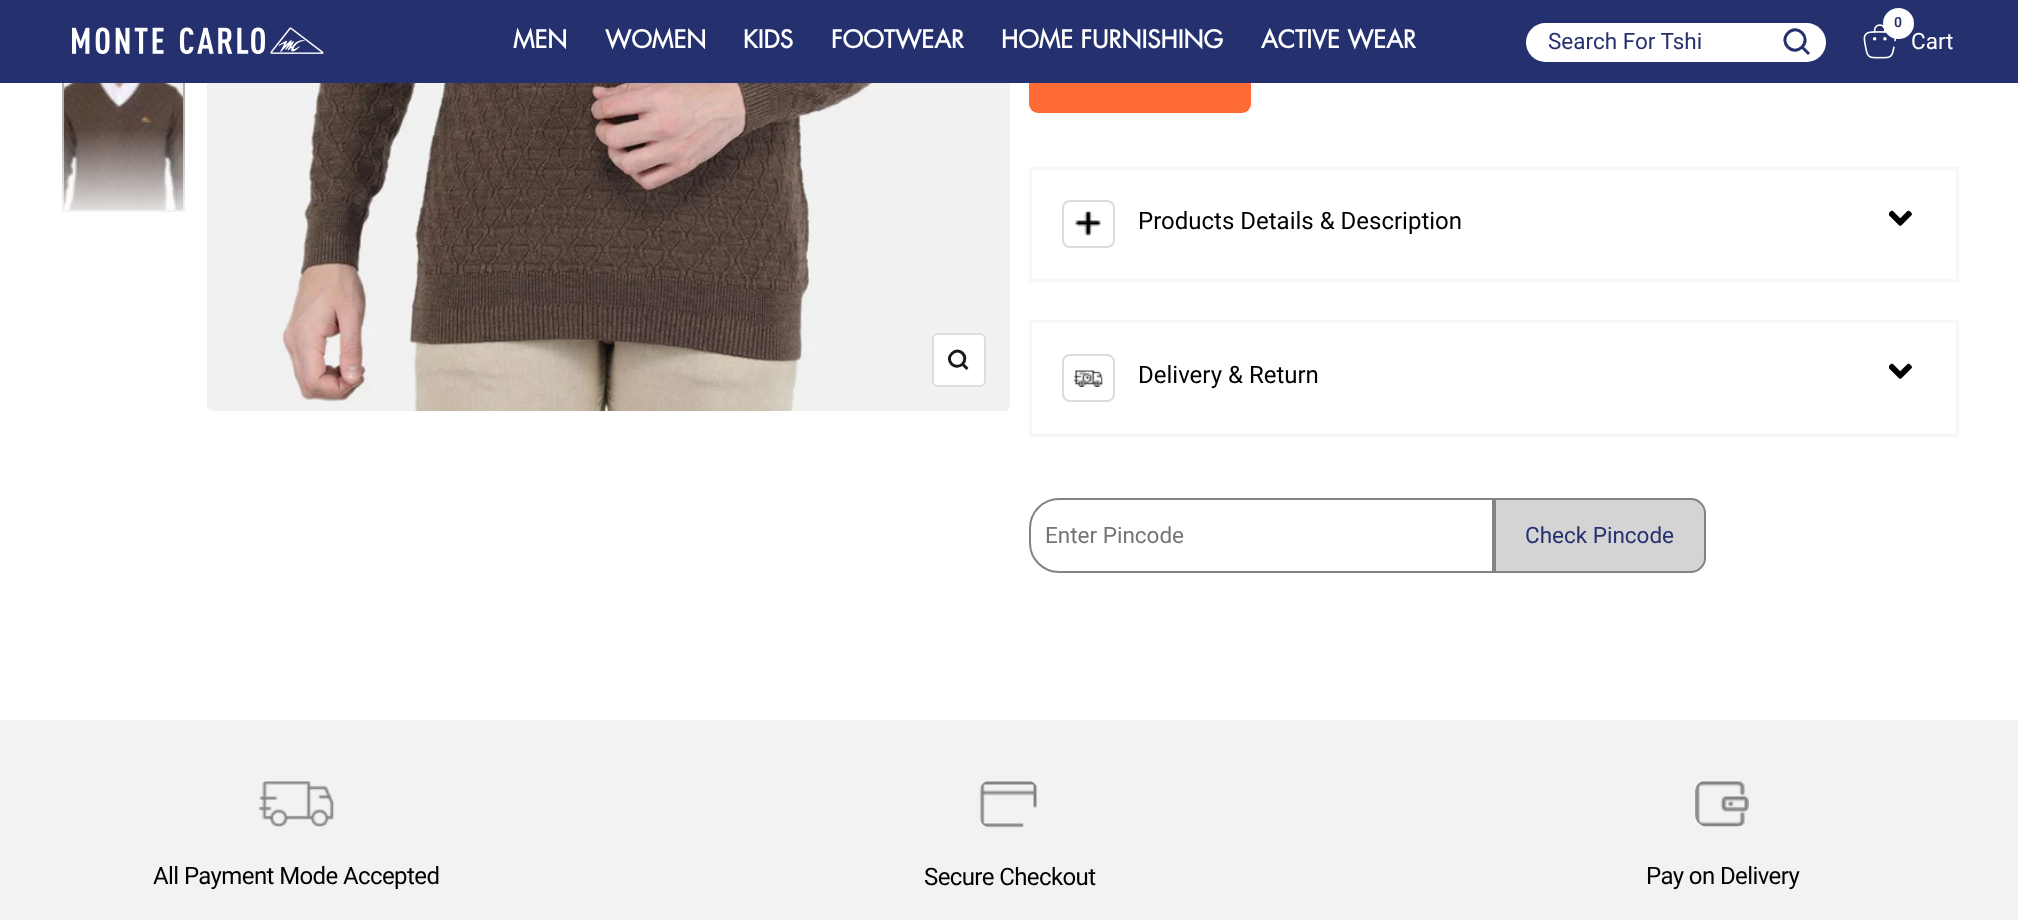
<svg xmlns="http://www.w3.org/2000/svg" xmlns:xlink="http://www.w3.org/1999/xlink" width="2018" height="920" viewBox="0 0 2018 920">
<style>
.cls-1{font:bold 24px Futura;fill:#ffffff}
.cls-2{font:22.5px Roboto;fill:#25306e}
.cls-3{font:600 14px Roboto;fill:#25306e}
.cls-4{font:22.5px Roboto;fill:#ffffff}
.cls-5{font:24px Roboto;fill:#000000}
.cls-6{font:22.5px Roboto;fill:#757575}
.cls-7{font:24px Roboto;letter-spacing:-0.6px;fill:#000000}
</style>
<defs>
<linearGradient id="g1" gradientUnits="userSpaceOnUse" x1="134" y1="227" x2="134" y2="129"><stop offset="0" stop-color="#ffffff"/><stop offset="1" stop-color="#ffffff" stop-opacity="0"/></linearGradient>
</defs>
<rect width="100%" height="100%" fill="#ffffff"/>
<image xlink:href="image2.png" x="64" y="83" width="119" height="127"/>
<rect fill="none" stroke="#b1b0b0" stroke-width="2" x="63" y="46" width="121" height="165"/>
<rect fill="#f5f1ec" x="207" y="-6" width="803" height="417" rx="6"/>
<rect fill="#ff6b35" x="1029" y="39" width="222" height="74" rx="9"/>
<rect fill="#25306e" x="0" y="0" width="2018" height="83"/>
<image xlink:href="image0.png" x="72" y="27" width="252" height="28"/>
<rect fill="#ffffff" x="1526" y="23" width="300" height="39" rx="19.5"/>
<path fill="none" stroke="#25306e" stroke-width="3" d="M1802 47C1811.5 37.5 1797.5 23.5 1788 33C1778.5 42.5 1792.5 56.5 1802 47ZM1802 47L1809 54"/>
<image xlink:href="image1.png" x="1863" y="24" width="33" height="35"/>
<circle fill="#ffffff" cx="1898.5" cy="23.5" r="15.5"/>
<rect fill="url(#g1)" x="62" y="131" width="123" height="81"/>
<image xlink:href="image3.png" x="207" y="83" width="802" height="328"/>
<rect fill="#ffffff" stroke="#dddddd" stroke-width="2" x="933" y="334" width="52" height="52" rx="5"/>
<path fill="none" stroke="#1a1a1a" stroke-width="3" d="M962.5 364C969.5 356.5 959 346 952 353.5C944.5 360.5 955 371 962.5 364ZM962.5 364L967.5 369"/>
<rect fill="none" stroke="#f7f7f7" stroke-width="3" x="1030.5" y="168.5" width="927" height="112"/>
<rect fill="none" stroke="#dbdbdb" stroke-width="2" x="1063" y="201" width="51" height="46" rx="7"/>
<image xlink:href="image4.png" x="1075" y="211" width="26" height="25"/>
<image xlink:href="image5.png" x="1889" y="210" width="23" height="16"/>
<rect fill="none" stroke="#f7f7f7" stroke-width="3" x="1030.5" y="321.5" width="927" height="114"/>
<rect fill="none" stroke="#dbdbdb" stroke-width="2" x="1063" y="355" width="51" height="46" rx="7"/>
<image xlink:href="image6.png" x="1074" y="370" width="29" height="17"/>
<image xlink:href="image5.png" x="1889" y="363" width="23" height="16"/>
<path fill="none" stroke="#848383" stroke-width="2" d="M1059 499H1493V572H1059C1043 572 1030 559 1030 543V528C1030 512 1043 499 1059 499Z"/>
<path fill="#d4d4d4" stroke="#848383" stroke-width="2" d="M1495 499H1691C1698.5 499 1705 505.5 1705 513V558C1705 565.5 1698.5 572 1691 572H1495Z"/>
<rect fill="#f2f2f2" x="0" y="720" width="2018" height="200"/>
<image xlink:href="image7.png" x="258" y="781" width="76" height="46"/>
<image xlink:href="image8.png" x="979" y="781" width="58" height="47"/>
<image xlink:href="image9.png" x="1695" y="781" width="54" height="46"/>
<text class="cls-1" x="513" y="48">MEN</text>
<text class="cls-1" x="605" y="48">WOMEN</text>
<text class="cls-1" x="743" y="48">KIDS</text>
<text class="cls-1" x="831" y="48">FOOTWEAR</text>
<text class="cls-1" x="1001" y="48">HOME FURNISHING</text>
<text class="cls-1" x="1261" y="48">ACTIVE WEAR</text>
<text class="cls-2" x="1548" y="49">Search For Tshi</text>
<text class="cls-3" x="1894" y="27">0</text>
<text class="cls-4" x="1911" y="49">Cart</text>
<text class="cls-5" x="1138" y="229">Products Details &amp; Description</text>
<text class="cls-5" x="1138" y="383">Delivery &amp; Return</text>
<text class="cls-6" x="1045" y="543">Enter Pincode</text>
<text class="cls-2" x="1525" y="543">Check Pincode</text>
<text class="cls-7" x="153" y="884">All Payment Mode Accepted</text>
<text class="cls-7" x="924" y="885">Secure Checkout</text>
<text class="cls-7" x="1646" y="884">Pay on Delivery</text>
</svg>
